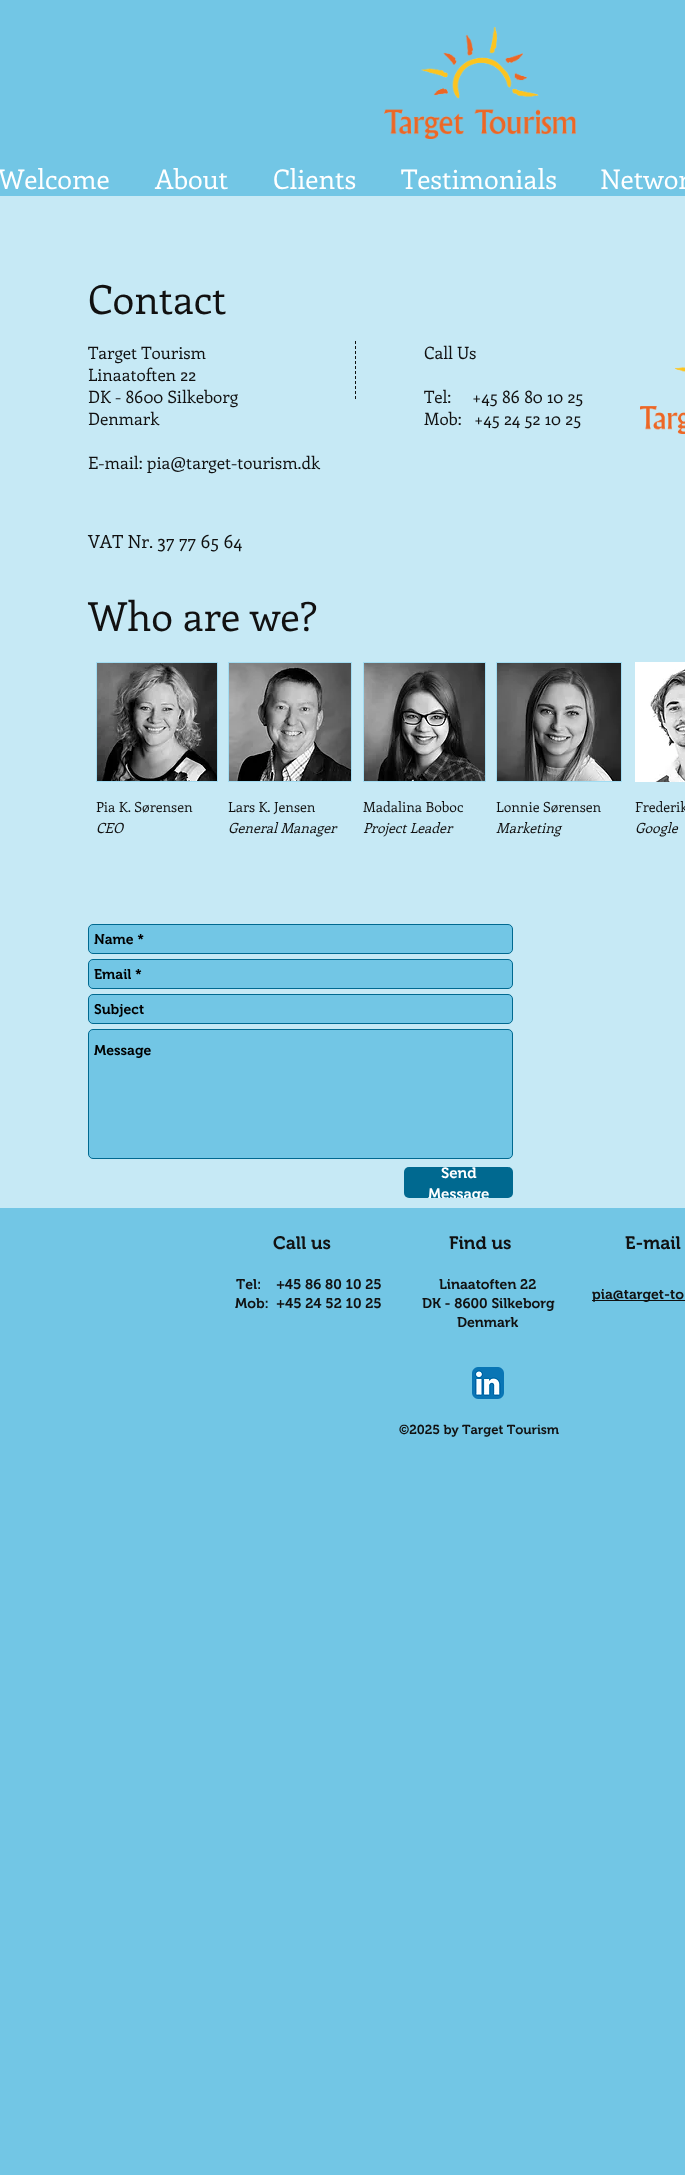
<svg xmlns="http://www.w3.org/2000/svg" xmlns:xlink="http://www.w3.org/1999/xlink" width="685" height="2175" viewBox="0 0 685 2175">
<style>*{font-kerning:none!important;font-variant-ligatures:none!important}</style>
<style>
.cls-1{font:27px Enriqueta;fill:#ffffff}
.cls-2{font:40px Enriqueta;fill:#111111}
.cls-3{font:17px Enriqueta;fill:#111111}
.cls-4{font:18px Enriqueta;fill:#111111}
.cls-5{font:14px Enriqueta;fill:#111111}
.cls-6{font:italic 14px Enriqueta;fill:#111111}
.cls-7{font:600 14px 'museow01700';fill:#000000}
.cls-8{font:600 15px 'museow01700';fill:#ffffff}
.cls-9{font:600 18px 'museow01700';fill:#111111}
.cls-10{font:600 14px 'museow01700';fill:#111111}
.cls-11{font:600 13px 'museow01700';fill:#111111}
</style>
<defs>
<clipPath id="clip1"><rect x="404" y="1167" width="109" height="31"/></clipPath>
</defs>
<rect width="100%" height="100%" fill="#72c6e5"/>
<image xlink:href="image0.png" x="384" y="27" width="192" height="112"/>
<rect fill="#c6e9f5" x="0" y="196" width="685" height="1012"/>
<path fill="none" stroke="#111111" stroke-dasharray="3 2" d="M355.5 341V399"/>
<image xlink:href="image1.png" x="640" y="367" width="45" height="67"/>
<rect fill="#a1dcf2" x="96" y="662" width="122" height="120"/>
<image xlink:href="image2.png" x="97" y="663" width="120" height="118"/>
<rect fill="#a1dcf2" x="228" y="662" width="124" height="120"/>
<image xlink:href="image3.png" x="229" y="663" width="122" height="118"/>
<rect fill="#a1dcf2" x="363" y="662" width="123" height="120"/>
<image xlink:href="image4.png" x="364" y="663" width="121" height="118"/>
<rect fill="#a1dcf2" x="496" y="662" width="126" height="120"/>
<image xlink:href="image5.png" x="497" y="663" width="124" height="118"/>
<image xlink:href="image6.png" x="635" y="662" width="50" height="120"/>
<rect fill="#72c6e5" stroke="#006990" x="88.5" y="924.5" width="424" height="29" rx="4.5"/>
<rect fill="#72c6e5" stroke="#006990" x="88.5" y="959.5" width="424" height="29" rx="4.5"/>
<rect fill="#72c6e5" stroke="#006990" x="88.5" y="994.5" width="424" height="29" rx="4.5"/>
<rect fill="#72c6e5" stroke="#006990" x="88.5" y="1029.5" width="424" height="129" rx="4.5"/>
<rect fill="#006990" x="404" y="1167" width="109" height="31" rx="5"/>
<rect fill="#111111" x="592" y="1300" width="93" height="1"/>
<image xlink:href="image7.png" x="472" y="1367" width="32" height="32"/>
<text class="cls-1" x="-2" y="189">Welcome</text>
<text class="cls-1" x="155" y="189">About</text>
<text class="cls-1" x="273" y="189">Clients</text>
<text class="cls-1" x="401" y="189">Testimonials</text>
<text class="cls-1" x="600" y="189">Networ</text>
<text class="cls-2" x="88" y="314">Contact</text>
<text class="cls-3"><tspan x="88" y="359">Target Tourism</tspan><tspan x="88" y="381">Linaatoften 22</tspan><tspan x="88" y="403">DK - 8600 Silkeborg</tspan><tspan x="88" y="425">Denmark</tspan></text>
<text class="cls-3" x="88" y="469">E-mail: pia@target-tourism.dk</text>
<text class="cls-3" x="424" y="359">Call Us</text>
<text class="cls-3" xml:space="preserve"><tspan x="424" y="403">Tel:     +45 86 80 10 25</tspan><tspan x="424" y="425">Mob:   +45 24 52 10 25</tspan></text>
<text class="cls-4" x="88" y="548">VAT Nr. 37</text>
<text class="cls-4" x="179" y="548">77 65 64</text>
<text class="cls-2" x="88" y="631">Who are we?</text>
<text class="cls-5" x="96" y="812">Pia K. Sørensen</text>
<text class="cls-6" x="96" y="833">CEO</text>
<text class="cls-5" x="228" y="812">Lars K. Jensen</text>
<text class="cls-6" x="228" y="833">General Manager</text>
<text class="cls-5" x="363" y="812">Madalina Boboc</text>
<text class="cls-6" x="363" y="833">Project Leader</text>
<text class="cls-5" x="496" y="812">Lonnie Sørensen</text>
<text class="cls-6" x="496" y="833">Marketing</text>
<text class="cls-5" x="635" y="812">Frederik</text>
<text class="cls-6" x="635" y="833">Google</text>
<text class="cls-7" x="94" y="944">Name *</text>
<text class="cls-7" x="94" y="979">Email *</text>
<text class="cls-7" x="94" y="1014">Subject</text>
<text class="cls-7" x="94" y="1055">Message</text>
<text class="cls-8" x="441" y="1178">Send</text>
<g clip-path="url(#clip1)">
<text class="cls-8" x="428" y="1199">Message</text>
</g>
<text class="cls-9" x="273" y="1249">Call us</text>
<text class="cls-9" x="449" y="1249">Find us</text>
<text class="cls-9" x="625" y="1249">E-mail</text>
<text class="cls-10" xml:space="preserve" x="236" y="1289">Tel:    +45 86 80 10 25</text>
<text class="cls-10" xml:space="preserve" x="235" y="1308">Mob:  +45 24 52 10 25</text>
<text class="cls-10" x="439" y="1289">Linaatoften 22</text>
<text class="cls-10" x="422" y="1308">DK - 8600 Silkeborg</text>
<text class="cls-10" x="457" y="1327">Denmark</text>
<text class="cls-10" x="592" y="1299">pia@target-to</text>
<text class="cls-11" x="399" y="1434">©2025 by Target Tourism</text>
</svg>
